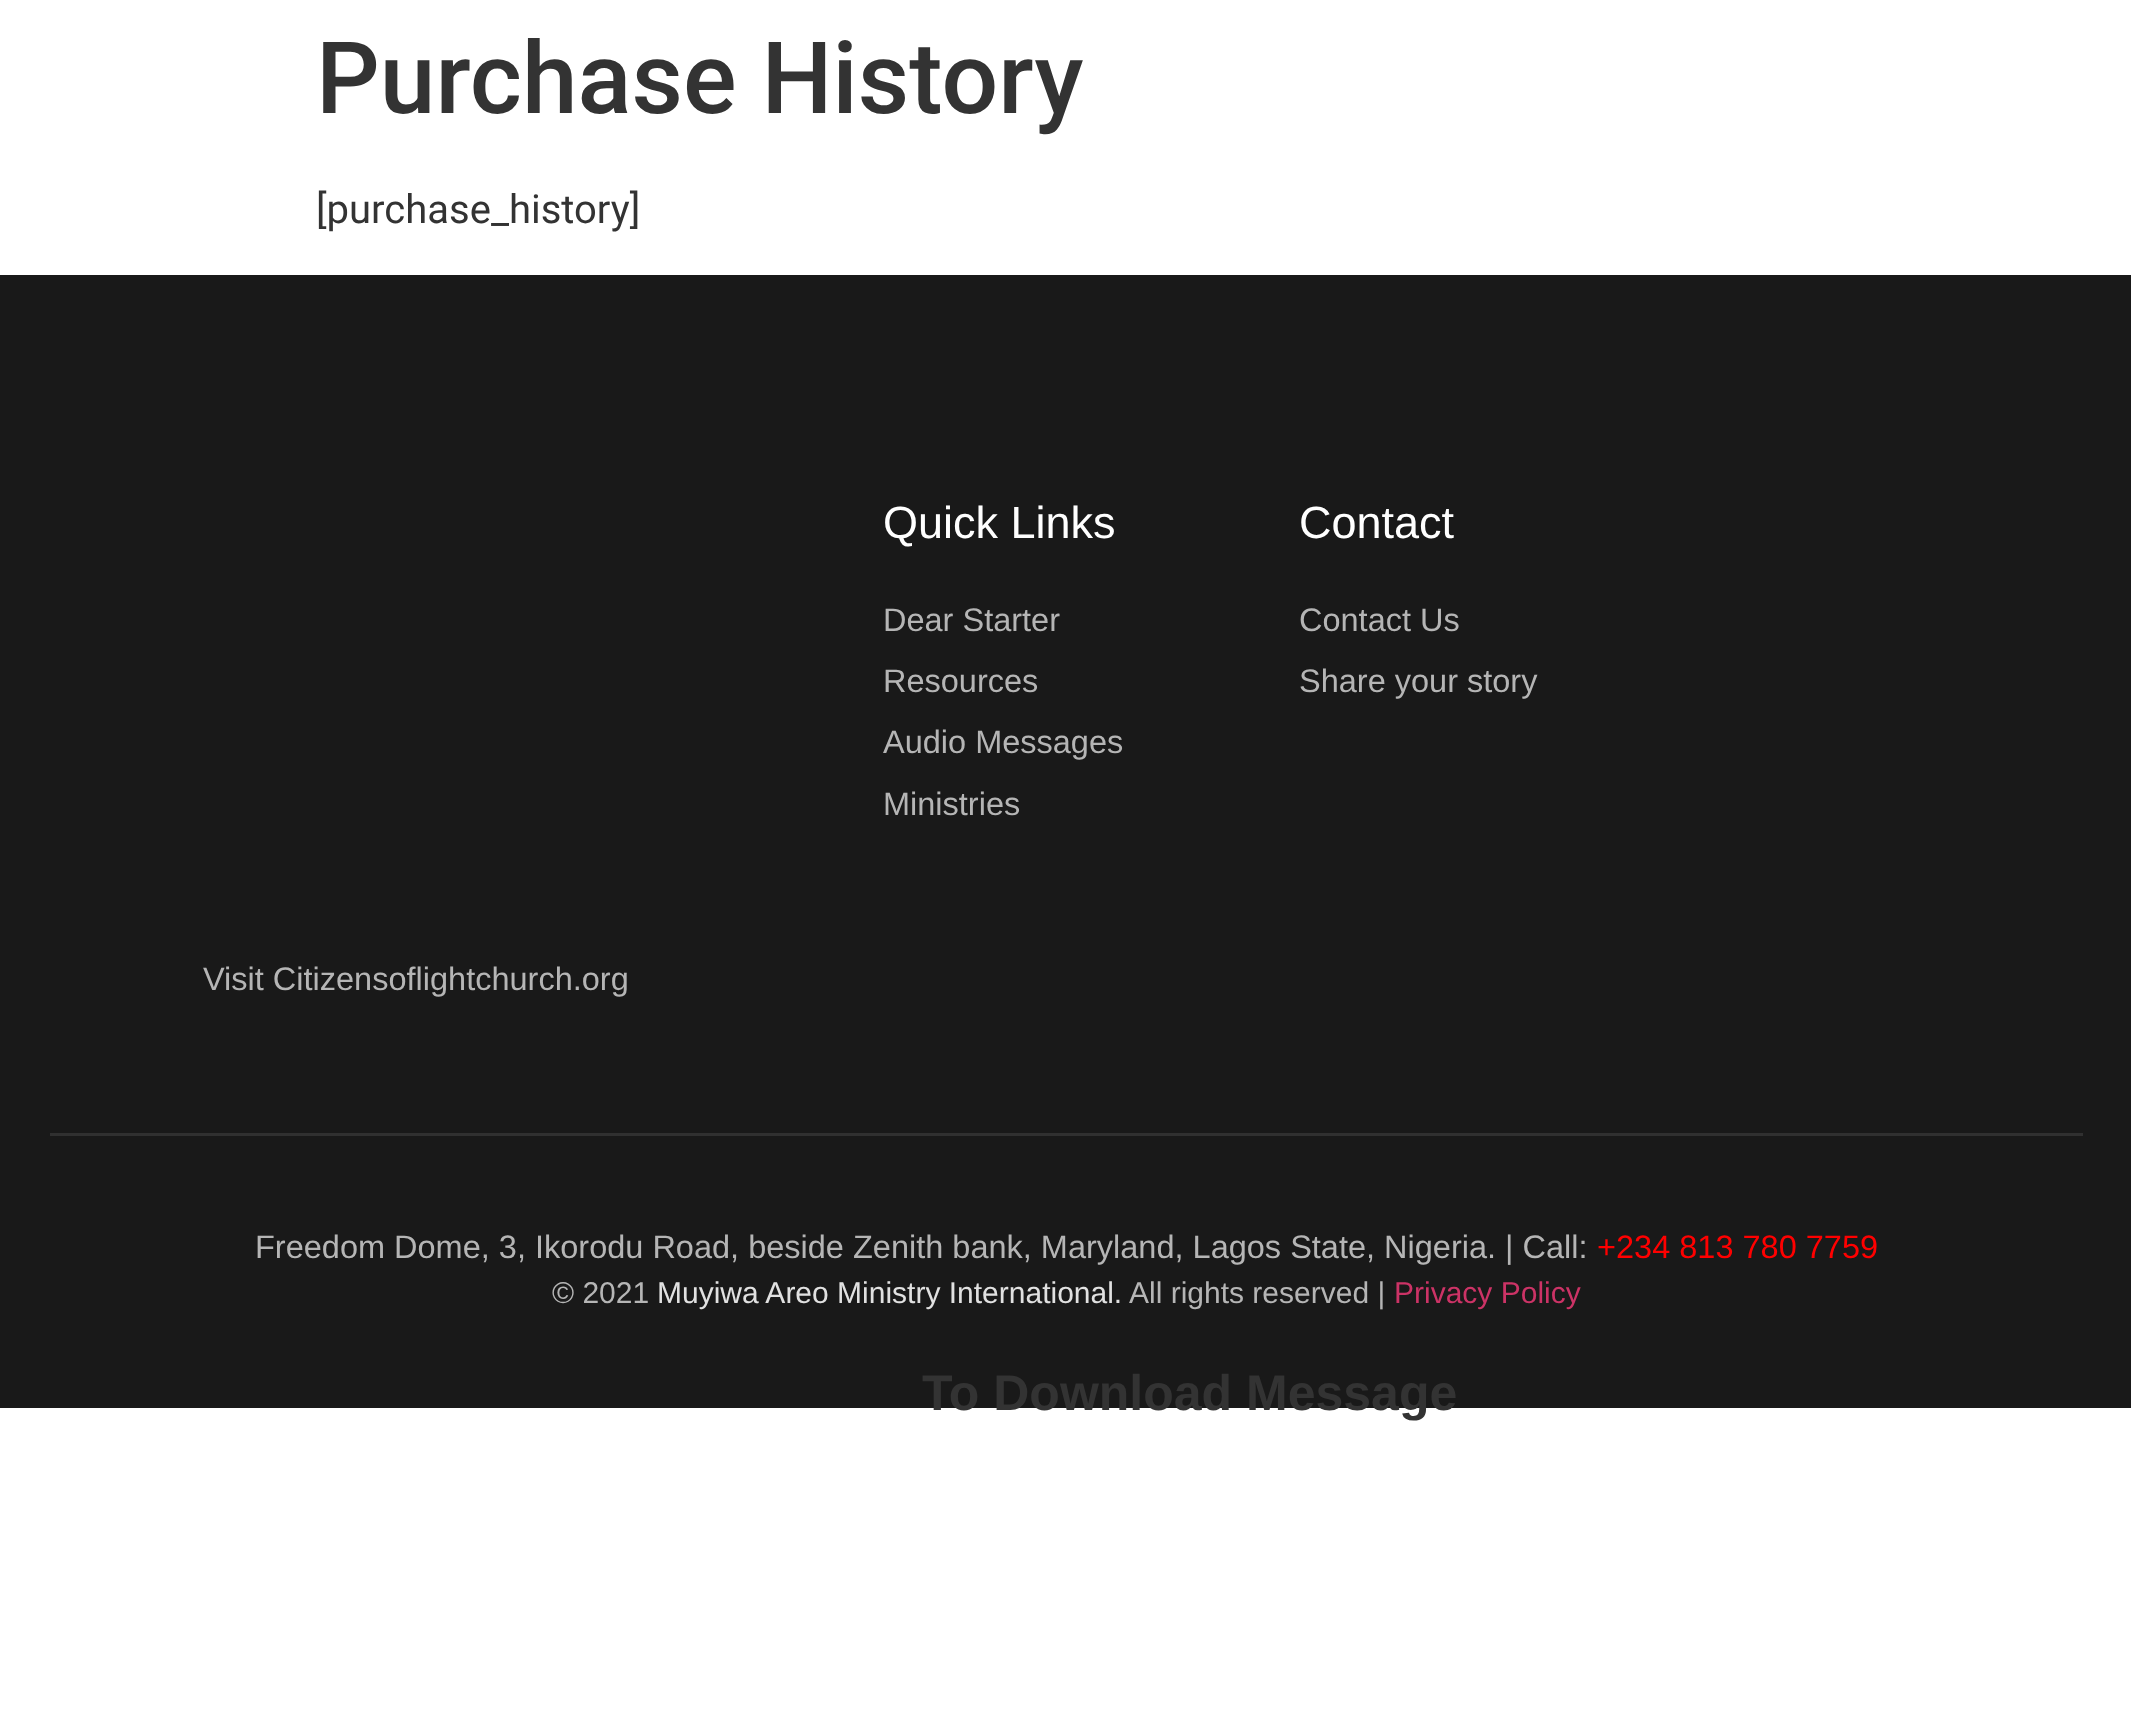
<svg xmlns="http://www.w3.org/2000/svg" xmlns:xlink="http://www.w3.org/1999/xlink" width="2131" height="1732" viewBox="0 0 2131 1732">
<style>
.cls-1{font:500 100px Roboto;fill:#333333}
.cls-2{font:40px Roboto;fill:#333333}
.cls-3{font:45px Liberation Sans;fill:#ffffff}
.cls-4{font:32.5px Liberation Sans;fill:#b5b5b5}
.cls-5{font:32.5px Liberation Sans;fill:#ff0000}
.cls-6{font:30px Liberation Sans;fill:#b5b5b5}
.cls-7{font:30px Liberation Sans;fill:#e1e1e1}
.cls-8{font:30px Liberation Sans;fill:#cc3366}
.cls-9{font:bold 50px Liberation Sans;fill:#333333}
</style>
<rect width="100%" height="100%" fill="#ffffff"/>
<rect fill="#191919" x="0" y="275" width="2131" height="1133"/>
<rect fill="#303030" x="50" y="1133" width="2033" height="3"/>
<text class="cls-1" x="316" y="113">Purchase History</text>
<text class="cls-2" x="316" y="223">[purchase_history]</text>
<text class="cls-3" x="883" y="538">Quick Links</text>
<text class="cls-4"><tspan x="883" y="631">Dear Starter</tspan><tspan x="883" y="692">Resources</tspan><tspan x="883" y="753">Audio Messages</tspan><tspan x="883" y="815">Ministries</tspan></text>
<text class="cls-3" x="1299" y="538">Contact</text>
<text class="cls-4"><tspan x="1299" y="631">Contact Us</tspan><tspan x="1299" y="692">Share your story</tspan></text>
<text class="cls-4" x="203" y="990">Visit Citizensoflightchurch.org</text>
<text class="cls-4" x="255" y="1258">Freedom Dome, 3, Ikorodu Road, beside Zenith bank, Maryland, Lagos State, Nigeria. | Call:</text>
<text class="cls-5" x="1597" y="1258">+234 813 780 7759</text>
<text class="cls-6" x="552" y="1303">© 2021</text>
<text class="cls-7" x="657" y="1303">Muyiwa Areo Ministry International.</text>
<text class="cls-6" x="1129" y="1303">All rights reserved |</text>
<text class="cls-8" x="1394" y="1303">Privacy Policy</text>
<text class="cls-9" x="922" y="1410">To Download Message</text>
</svg>
